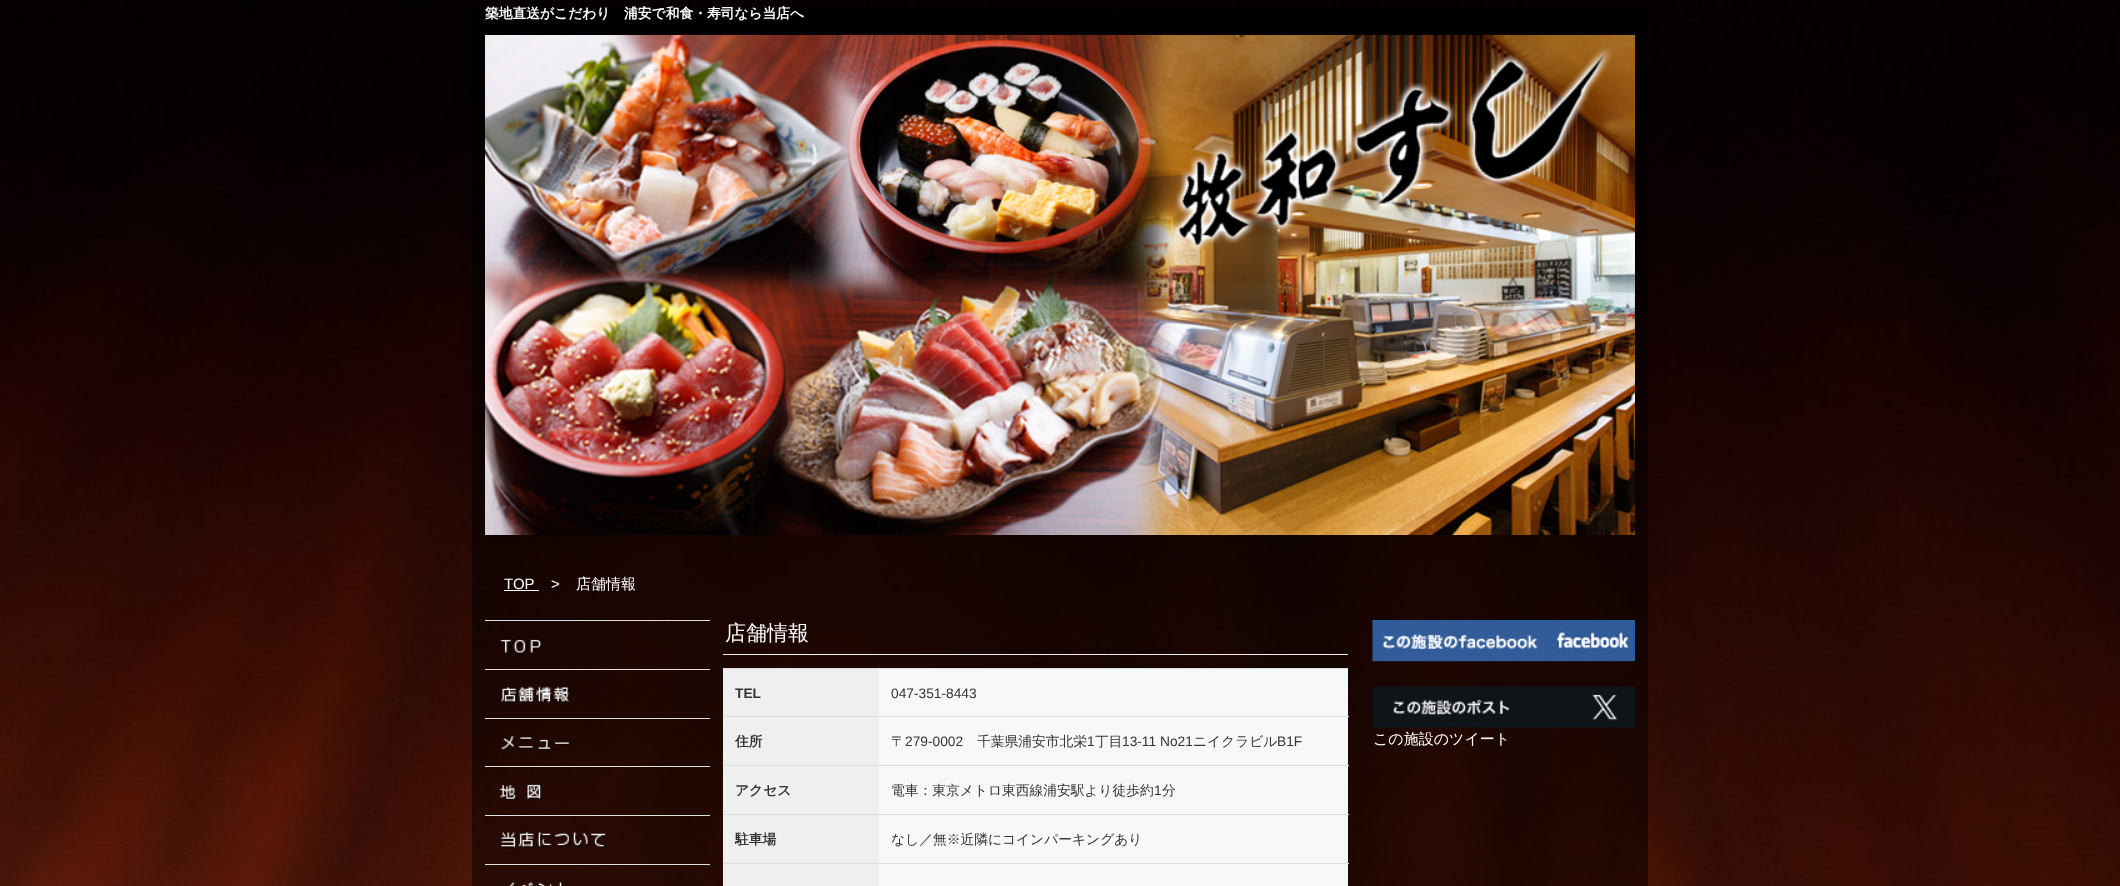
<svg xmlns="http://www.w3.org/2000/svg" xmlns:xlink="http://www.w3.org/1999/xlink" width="2120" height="886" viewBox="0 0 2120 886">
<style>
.cls-1{font:bold 13.75px WenQuanYi Zen Hei;fill:#ffffff}
.cls-2{font:15px Liberation Sans;fill:#ffffff}
.cls-3{font:500 15px WenQuanYi Zen Hei;fill:#ffffff}
.cls-4{font:500 21px WenQuanYi Zen Hei;fill:#ffffff}
.cls-5{font:bold 13.75px Liberation Sans;fill:#333333}
.cls-6{font:13.75px Liberation Sans;fill:#333333}
.cls-7{font:bold 13.75px WenQuanYi Zen Hei;fill:#333333}
.cls-8{font:500 13.75px WenQuanYi Zen Hei;fill:#333333}
</style>
<rect width="100%" height="100%" fill="#ffffff"/>
<image xlink:href="image0.png" x="0" y="0" width="2120" height="886"/>
<rect fill="#000000" fill-opacity="0.5" x="472" y="8" width="1176" height="878"/>
<image xlink:href="image1.png" x="485" y="35" width="1150" height="500"/>
<image xlink:href="image2.png" x="1172" y="46" width="441" height="206"/>
<rect fill="#ffffff" x="504" y="590" width="35" height="1"/>
<rect fill="#dfdfdf" x="485" y="620" width="225" height="1"/>
<rect fill="#dfdfdf" x="485" y="669" width="225" height="1"/>
<image xlink:href="image3.png" x="500" y="639" width="43" height="16"/>
<rect fill="#dfdfdf" x="485" y="718" width="225" height="1"/>
<image xlink:href="image4.png" x="501" y="686" width="69" height="18"/>
<rect fill="#dfdfdf" x="485" y="766" width="225" height="1"/>
<image xlink:href="image5.png" x="501" y="736" width="70" height="15"/>
<rect fill="#dfdfdf" x="485" y="815" width="225" height="1"/>
<image xlink:href="image6.png" x="499" y="784" width="44" height="17"/>
<rect fill="#dfdfdf" x="485" y="864" width="225" height="1"/>
<image xlink:href="image7.png" x="501" y="831" width="106" height="18"/>
<image xlink:href="image8.png" x="509" y="882" width="55" height="4"/>
<rect fill="#eeeeee" x="723" y="654" width="625" height="1"/>
<rect fill="#dcdddd" x="723" y="668" width="625" height="1"/>
<rect fill="#efefef" x="723" y="669" width="156" height="96"/>
<rect fill="#f7f8f8" x="879" y="669" width="469" height="96"/>
<rect fill="#dcdddd" x="723" y="716" width="626" height="1"/>
<rect fill="#dcdddd" x="723" y="765" width="626" height="1"/>
<rect fill="#efefef" x="723" y="766" width="156" height="48"/>
<rect fill="#f7f8f8" x="879" y="766" width="469" height="48"/>
<rect fill="#dcdddd" x="723" y="814" width="626" height="1"/>
<rect fill="#efefef" x="723" y="815" width="156" height="48"/>
<rect fill="#f7f8f8" x="879" y="815" width="469" height="48"/>
<rect fill="#dcdddd" x="723" y="863" width="626" height="1"/>
<rect fill="#efefef" x="723" y="864" width="156" height="22"/>
<rect fill="#f7f8f8" x="879" y="864" width="469" height="22"/>
<image xlink:href="image9.png" x="1372" y="620" width="263" height="42"/>
<image xlink:href="image10.png" x="1372" y="686" width="263" height="42"/>
<text class="cls-1" x="485" y="18">築地直送がこだわり　浦安で和食・寿司なら当店へ</text>
<text class="cls-2" x="504" y="589">TOP</text>
<text class="cls-2" x="551" y="589">&gt;</text>
<text class="cls-3" x="576" y="589">店舗情報</text>
<text class="cls-4" x="725" y="640">店舗情報</text>
<text class="cls-5" x="735" y="698">TEL</text>
<text class="cls-6" x="891" y="698">047-351-8443</text>
<text class="cls-7" x="735" y="746">住所</text>
<text class="cls-8" x="891" y="746">〒</text>
<text class="cls-6" x="905" y="746">279-0002</text>
<text class="cls-8" x="977" y="746">千葉県浦安市北栄</text>
<text class="cls-6" x="1087" y="746">1</text>
<text class="cls-8" x="1095" y="746">丁目</text>
<text class="cls-6" x="1122" y="746">13-11 No21</text>
<text class="cls-8" x="1193" y="746">ニイクラビル</text>
<text class="cls-6" x="1277" y="746">B1F</text>
<text class="cls-7" x="735" y="795">アクセス</text>
<text class="cls-8" x="891" y="795">電車：東京メトロ東西線浦安駅より徒歩約</text>
<text class="cls-6" x="1154" y="795">1</text>
<text class="cls-8" x="1162" y="795">分</text>
<text class="cls-7" x="735" y="844">駐車場</text>
<text class="cls-8" x="891" y="844">なし／無※近隣にコインパーキングあり</text>
<text class="cls-3" x="1373" y="744">この施設のツイート</text>
</svg>
